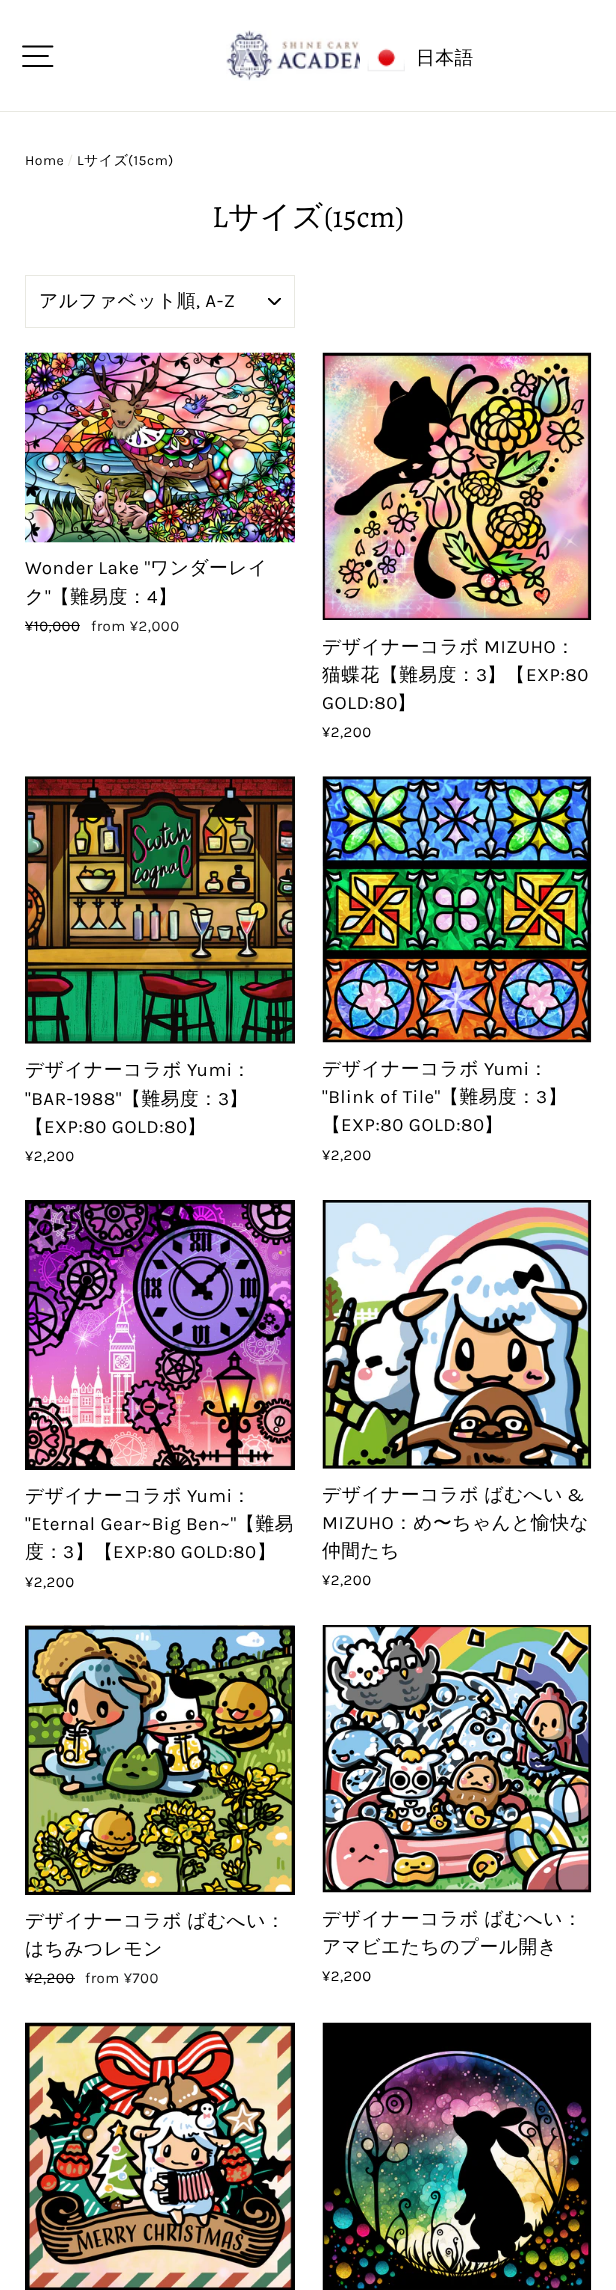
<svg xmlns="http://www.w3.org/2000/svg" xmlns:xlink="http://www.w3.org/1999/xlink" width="616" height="2290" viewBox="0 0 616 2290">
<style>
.cls-1{font:500 18.75px WenQuanYi Zen Hei;letter-spacing:0.5px;fill:#000000}
.cls-2{font:14px Karla;letter-spacing:0.5px;fill:#000000}
.cls-3{font:14px Karla;letter-spacing:0.5px;fill:#e8e8e1}
.cls-4{font:500 14px WenQuanYi Zen Hei;letter-spacing:0.5px;fill:#000000}
.cls-5{font:31px Alegreya;fill:#000000}
.cls-6{font:500 31px WenQuanYi Zen Hei;fill:#000000}
.cls-7{font:18.75px Karla;letter-spacing:0.5px;fill:#000000}
.cls-8{font:15px Karla;letter-spacing:0.5px;fill:#000000}
.cls-9{font:15px Karla;letter-spacing:0.5px;fill:#1c1d1d}
</style>
<rect width="100%" height="100%" fill="#ffffff"/>
<image xlink:href="image1.png" x="226" y="30" width="165" height="51"/>
<rect fill="#ffffff" x="360" y="31" width="238" height="49" rx="6"/>
<image xlink:href="image0.png" x="367" y="48" width="38" height="24"/>
<rect fill="#e8e8e1" x="0" y="111" width="616" height="1"/>
<path fill="none" stroke="#040404" stroke-width="1.8" stroke-linecap="round" stroke-linejoin="round" d="M23 46.5H52.5M23 56H48M23 66H52.5"/>
<image xlink:href="image2.png" x="268" y="298" width="13" height="7"/>
<rect fill="none" stroke="#e8e8e1" x="25.5" y="275.5" width="269" height="52"/>
<image xlink:href="image3.png" x="25" y="352" width="270" height="191"/>
<rect fill="#000000" x="25" y="625" width="55" height="1"/>
<image xlink:href="image4.png" x="322" y="352" width="270" height="268"/>
<image xlink:href="image5.png" x="25" y="776" width="270" height="268"/>
<image xlink:href="image6.png" x="322" y="776" width="270" height="267"/>
<image xlink:href="image7.png" x="25" y="1200" width="270" height="270"/>
<image xlink:href="image8.png" x="322" y="1200" width="270" height="269"/>
<image xlink:href="image9.png" x="25" y="1625" width="270" height="270"/>
<rect fill="#000000" x="25" y="1978" width="50" height="1"/>
<image xlink:href="image10.png" x="322" y="1625" width="270" height="268"/>
<image xlink:href="image11.png" x="25" y="2022" width="270" height="268"/>
<image xlink:href="image12.png" x="322" y="2022" width="270" height="268"/>
<text class="cls-1" x="416" y="64">日本語</text>
<text class="cls-2" x="25" y="165">Home</text>
<text class="cls-3" x="67" y="165">/</text>
<text class="cls-2" x="77" y="165">L</text>
<text class="cls-4" x="84" y="165">サイズ</text>
<text class="cls-2" x="128" y="165">(15cm)</text>
<text class="cls-5" x="212" y="227">L</text>
<text class="cls-6" x="228" y="227">サイズ</text>
<text class="cls-5" x="324" y="227">(15cm)</text>
<text class="cls-1" x="39" y="307">アルファベット順</text>
<text class="cls-7" x="196" y="307">, A-Z</text>
<text class="cls-7" x="25" y="574">Wonder Lake "</text>
<text class="cls-1" x="150" y="574">ワンダーレイ</text>
<text class="cls-1" x="25" y="603">ク 【難易度：</text>
<text class="cls-1" x="158" y="603">】</text>
<text class="cls-7" x="45" y="603">"</text>
<text class="cls-7" x="147" y="603">4</text>
<text class="cls-8" x="25" y="631">¥10,000</text>
<text class="cls-9" x="91" y="631">from ¥2,000</text>
<text class="cls-1" x="322" y="653">デザイナーコラボ</text>
<text class="cls-7" x="484" y="653">MIZUHO</text>
<text class="cls-1" x="556" y="653">：</text>
<text class="cls-1" x="322" y="681">猫蝶花【難易度：</text>
<text class="cls-7" x="476" y="681">3</text>
<text class="cls-1" x="487" y="681">】【</text>
<text class="cls-7" x="526" y="681">EXP:80</text>
<text class="cls-7" x="322" y="709">GOLD:80</text>
<text class="cls-1" x="397" y="709">】</text>
<text class="cls-8" x="322" y="737">¥2,200</text>
<text class="cls-1" x="25" y="1076">デザイナーコラボ</text>
<text class="cls-7" x="187" y="1076">Yumi</text>
<text class="cls-1" x="232" y="1076">：</text>
<text class="cls-7" x="25" y="1105">"BAR-1988"</text>
<text class="cls-1" x="122" y="1105">【難易度：</text>
<text class="cls-7" x="218" y="1105">3</text>
<text class="cls-1" x="229" y="1105">】</text>
<text class="cls-1" x="25" y="1133">【</text>
<text class="cls-7" x="44" y="1133">EXP:80 GOLD:80</text>
<text class="cls-1" x="187" y="1133">】</text>
<text class="cls-8" x="25" y="1161">¥2,200</text>
<text class="cls-1" x="322" y="1075">デザイナーコラボ</text>
<text class="cls-7" x="484" y="1075">Yumi</text>
<text class="cls-1" x="529" y="1075">：</text>
<text class="cls-7" x="322" y="1103">"Blink of Tile"</text>
<text class="cls-1" x="440" y="1103">【難易度：</text>
<text class="cls-7" x="536" y="1103">3</text>
<text class="cls-1" x="548" y="1103">】</text>
<text class="cls-1" x="322" y="1131">【</text>
<text class="cls-7" x="341" y="1131">EXP:80 GOLD:80</text>
<text class="cls-1" x="484" y="1131">】</text>
<text class="cls-8" x="322" y="1160">¥2,200</text>
<text class="cls-1" x="25" y="1502">デザイナーコラボ</text>
<text class="cls-7" x="187" y="1502">Yumi</text>
<text class="cls-1" x="232" y="1502">：</text>
<text class="cls-7" x="25" y="1530">"Eternal Gear~Big Ben~"</text>
<text class="cls-1" x="236" y="1530">【難易</text>
<text class="cls-1" x="25" y="1558">度：</text>
<text class="cls-7" x="63" y="1558">3</text>
<text class="cls-1" x="75" y="1558">】【</text>
<text class="cls-7" x="113" y="1558">EXP:80 GOLD:80</text>
<text class="cls-1" x="257" y="1558">】</text>
<text class="cls-8" x="25" y="1587">¥2,200</text>
<text class="cls-1" x="322" y="1501" word-spacing="-1">デザイナーコラボ ばむへい</text>
<text class="cls-7" x="567" y="1501">&amp;</text>
<text class="cls-7" x="322" y="1529">MIZUHO</text>
<text class="cls-1" x="394" y="1529">：め〜ちゃんと愉快な</text>
<text class="cls-1" x="322" y="1557">仲間たち</text>
<text class="cls-8" x="322" y="1585">¥2,200</text>
<text class="cls-1"><tspan x="25" y="1927" word-spacing="-1">デザイナーコラボ ばむへい：</tspan><tspan x="25" y="1955">はちみつレモン</tspan></text>
<text class="cls-8" x="25" y="1983">¥2,200</text>
<text class="cls-9" x="85" y="1983">from ¥700</text>
<text class="cls-1"><tspan x="322" y="1925" word-spacing="-1">デザイナーコラボ ばむへい：</tspan><tspan x="322" y="1953">アマビエたちのプール開き</tspan></text>
<text class="cls-8" x="322" y="1981">¥2,200</text>
</svg>
